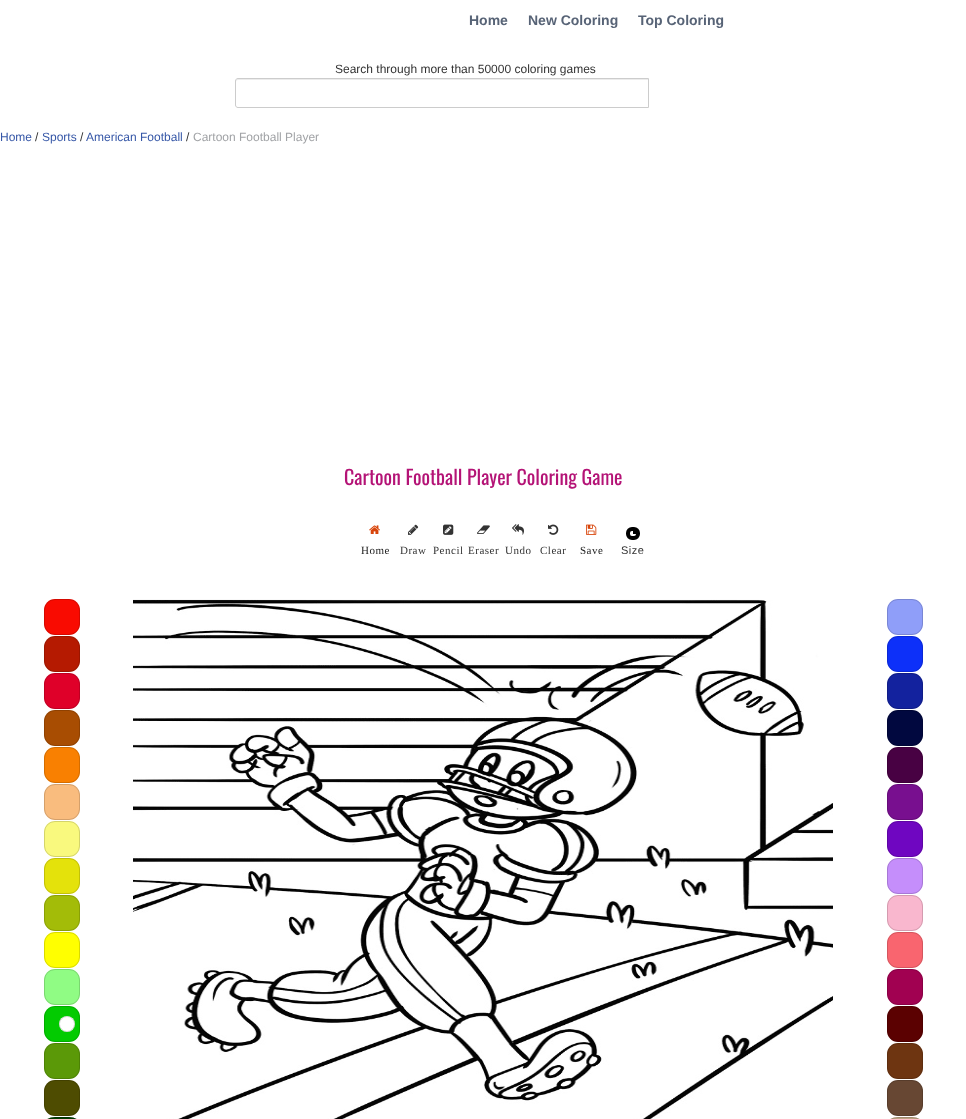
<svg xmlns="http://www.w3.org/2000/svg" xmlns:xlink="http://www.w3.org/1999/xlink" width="966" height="1119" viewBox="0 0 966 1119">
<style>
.cls-1{font:bold 14px Liberation Sans;fill:#576376}
.cls-2{font:12px Liberation Sans;fill:#333333}
.cls-3{font:12px Liberation Sans;fill:#3657a7}
.cls-4{font:12px Liberation Sans;fill:#a1a3a6}
.cls-5{font:20px Oswald;fill:#b41376}
.cls-6{font:11px Liberation Serif;letter-spacing:0.5px;fill:#222222}
.cls-7{font:11px Liberation Serif;letter-spacing:0.5px;fill:#333333}
.cls-8{font:11px Liberation Sans;letter-spacing:0.5px;fill:#333333}
</style>
<rect width="100%" height="100%" fill="#ffffff"/>
<path fill="#ececec" d="M238 80H648V79H238C236 79 236 81 236 82C236 81 237 80 238 80Z"/>
<path fill="none" stroke="#cccccc" d="M238 78.5H648.5V107.5H238C236.5 107.5 235.5 106.5 235.5 105V81C235.5 79.5 236.5 78.5 238 78.5Z"/>
<image xlink:href="image0.png" x="369" y="525" width="11" height="9"/>
<image xlink:href="image1.png" x="408" y="524" width="11" height="11"/>
<image xlink:href="image2.png" x="443" y="524" width="11" height="11"/>
<image xlink:href="image3.png" x="477" y="525" width="13" height="9"/>
<image xlink:href="image4.png" x="512" y="524" width="12" height="11"/>
<image xlink:href="image5.png" x="548" y="524" width="11" height="11"/>
<image xlink:href="image6.png" x="586" y="524" width="11" height="11"/>
<rect fill="none" stroke="#000000" stroke-width="4" x="628" y="529" width="10" height="9" rx="4"/>
<rect fill="#000000" x="633" y="531" width="3" height="3"/>
<rect fill="#f90b01" x="44" y="599" width="36" height="36" rx="11"/>
<rect fill="none" stroke="#000000" stroke-opacity="0.15" x="44.5" y="599.5" width="35" height="35" rx="10.5"/>
<rect fill="#b51a01" x="44" y="636" width="36" height="36" rx="11"/>
<rect fill="none" stroke="#000000" stroke-opacity="0.15" x="44.5" y="636.5" width="35" height="35" rx="10.5"/>
<rect fill="#df0029" x="44" y="673" width="36" height="36" rx="11"/>
<rect fill="none" stroke="#000000" stroke-opacity="0.15" x="44.5" y="673.5" width="35" height="35" rx="10.5"/>
<rect fill="#a84d02" x="44" y="710" width="36" height="36" rx="11"/>
<rect fill="none" stroke="#000000" stroke-opacity="0.15" x="44.5" y="710.5" width="35" height="35" rx="10.5"/>
<rect fill="#f98001" x="44" y="747" width="36" height="36" rx="11"/>
<rect fill="none" stroke="#000000" stroke-opacity="0.15" x="44.5" y="747.5" width="35" height="35" rx="10.5"/>
<rect fill="#f9bc7e" x="44" y="784" width="36" height="36" rx="11"/>
<rect fill="none" stroke="#000000" stroke-opacity="0.15" x="44.5" y="784.5" width="35" height="35" rx="10.5"/>
<rect fill="#f9f97e" x="44" y="821" width="36" height="36" rx="11"/>
<rect fill="none" stroke="#000000" stroke-opacity="0.15" x="44.5" y="821.5" width="35" height="35" rx="10.5"/>
<rect fill="#e4e20b" x="44" y="858" width="36" height="36" rx="11"/>
<rect fill="none" stroke="#000000" stroke-opacity="0.15" x="44.5" y="858.5" width="35" height="35" rx="10.5"/>
<rect fill="#a3bc08" x="44" y="895" width="36" height="36" rx="11"/>
<rect fill="none" stroke="#000000" stroke-opacity="0.15" x="44.5" y="895.5" width="35" height="35" rx="10.5"/>
<rect fill="#ffff00" x="44" y="932" width="36" height="36" rx="11"/>
<rect fill="none" stroke="#000000" stroke-opacity="0.15" x="44.5" y="932.5" width="35" height="35" rx="10.5"/>
<rect fill="#90fc84" x="44" y="969" width="36" height="36" rx="11"/>
<rect fill="none" stroke="#000000" stroke-opacity="0.15" x="44.5" y="969.5" width="35" height="35" rx="10.5"/>
<rect fill="#03cb01" x="44" y="1006" width="36" height="36" rx="11"/>
<rect fill="none" stroke="#000000" stroke-opacity="0.15" x="44.5" y="1006.5" width="35" height="35" rx="10.5"/>
<circle fill="#ffffff" cx="67" cy="1024" r="8"/>
<circle fill="none" stroke="#000000" stroke-opacity="0.15" cx="67" cy="1024" r="7.5"/>
<rect fill="#5b9908" x="44" y="1043" width="36" height="36" rx="11"/>
<rect fill="none" stroke="#000000" stroke-opacity="0.15" x="44.5" y="1043.5" width="35" height="35" rx="10.5"/>
<rect fill="#4e4c01" x="44" y="1080" width="36" height="36" rx="11"/>
<rect fill="none" stroke="#000000" stroke-opacity="0.15" x="44.5" y="1080.5" width="35" height="35" rx="10.5"/>
<rect fill="#013d01" x="44" y="1117" width="36" height="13" rx="11"/>
<rect fill="none" stroke="#000000" stroke-opacity="0.15" x="44.5" y="1117.5" width="35" height="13" rx="10.5"/>
<image xlink:href="image7.png" x="133" y="599" width="700" height="520"/>
<rect fill="#8f9ef9" x="887" y="599" width="36" height="36" rx="11"/>
<rect fill="none" stroke="#000000" stroke-opacity="0.15" x="887.5" y="599.5" width="35" height="35" rx="10.5"/>
<rect fill="#0d30f9" x="887" y="636" width="36" height="36" rx="11"/>
<rect fill="none" stroke="#000000" stroke-opacity="0.15" x="887.5" y="636.5" width="35" height="35" rx="10.5"/>
<rect fill="#13229e" x="887" y="673" width="36" height="36" rx="11"/>
<rect fill="none" stroke="#000000" stroke-opacity="0.15" x="887.5" y="673.5" width="35" height="35" rx="10.5"/>
<rect fill="#01083f" x="887" y="710" width="36" height="36" rx="11"/>
<rect fill="none" stroke="#000000" stroke-opacity="0.15" x="887.5" y="710.5" width="35" height="35" rx="10.5"/>
<rect fill="#480143" x="887" y="747" width="36" height="36" rx="11"/>
<rect fill="none" stroke="#000000" stroke-opacity="0.15" x="887.5" y="747.5" width="35" height="35" rx="10.5"/>
<rect fill="#780f8f" x="887" y="784" width="36" height="36" rx="11"/>
<rect fill="none" stroke="#000000" stroke-opacity="0.15" x="887.5" y="784.5" width="35" height="35" rx="10.5"/>
<rect fill="#6f06c1" x="887" y="821" width="36" height="36" rx="11"/>
<rect fill="none" stroke="#000000" stroke-opacity="0.15" x="887.5" y="821.5" width="35" height="35" rx="10.5"/>
<rect fill="#c58efb" x="887" y="858" width="36" height="36" rx="11"/>
<rect fill="none" stroke="#000000" stroke-opacity="0.15" x="887.5" y="858.5" width="35" height="35" rx="10.5"/>
<rect fill="#f9b7ce" x="887" y="895" width="36" height="36" rx="11"/>
<rect fill="none" stroke="#000000" stroke-opacity="0.15" x="887.5" y="895.5" width="35" height="35" rx="10.5"/>
<rect fill="#f9656f" x="887" y="932" width="36" height="36" rx="11"/>
<rect fill="none" stroke="#000000" stroke-opacity="0.15" x="887.5" y="932.5" width="35" height="35" rx="10.5"/>
<rect fill="#a10151" x="887" y="969" width="36" height="36" rx="11"/>
<rect fill="none" stroke="#000000" stroke-opacity="0.15" x="887.5" y="969.5" width="35" height="35" rx="10.5"/>
<rect fill="#5b0101" x="887" y="1006" width="36" height="36" rx="11"/>
<rect fill="none" stroke="#000000" stroke-opacity="0.15" x="887.5" y="1006.5" width="35" height="35" rx="10.5"/>
<rect fill="#6e3511" x="887" y="1043" width="36" height="36" rx="11"/>
<rect fill="none" stroke="#000000" stroke-opacity="0.15" x="887.5" y="1043.5" width="35" height="35" rx="10.5"/>
<rect fill="#674733" x="887" y="1080" width="36" height="36" rx="11"/>
<rect fill="none" stroke="#000000" stroke-opacity="0.15" x="887.5" y="1080.5" width="35" height="35" rx="10.5"/>
<rect fill="#bca383" x="887" y="1117" width="36" height="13" rx="11"/>
<rect fill="none" stroke="#000000" stroke-opacity="0.15" x="887.5" y="1117.5" width="35" height="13" rx="10.5"/>
<text class="cls-1" x="469" y="25">Home</text>
<text class="cls-1" x="528" y="25">New Coloring</text>
<text class="cls-1" x="638" y="25">Top Coloring</text>
<text class="cls-2" x="335" y="73">Search through more than 50000 coloring games</text>
<text class="cls-3" x="0" y="141">Home</text>
<text class="cls-2" x="35" y="141">/</text>
<text class="cls-3" x="42" y="141">Sports</text>
<text class="cls-2" x="80" y="141">/</text>
<text class="cls-3" x="86" y="141">American Football</text>
<text class="cls-2" x="186" y="141">/</text>
<text class="cls-4" x="193" y="141">Cartoon Football Player</text>
<text class="cls-5" x="344" y="485">Cartoon Football Player Coloring Game</text>
<text class="cls-6" x="361" y="554">Home</text>
<text class="cls-7" x="400" y="554">Draw</text>
<text class="cls-7" x="433" y="554">Pencil</text>
<text class="cls-7" x="468" y="554">Eraser</text>
<text class="cls-7" x="505" y="554">Undo</text>
<text class="cls-7" x="540" y="554">Clear</text>
<text class="cls-6" x="580" y="554">Save</text>
<text class="cls-8" x="621" y="554">Size</text>
</svg>
